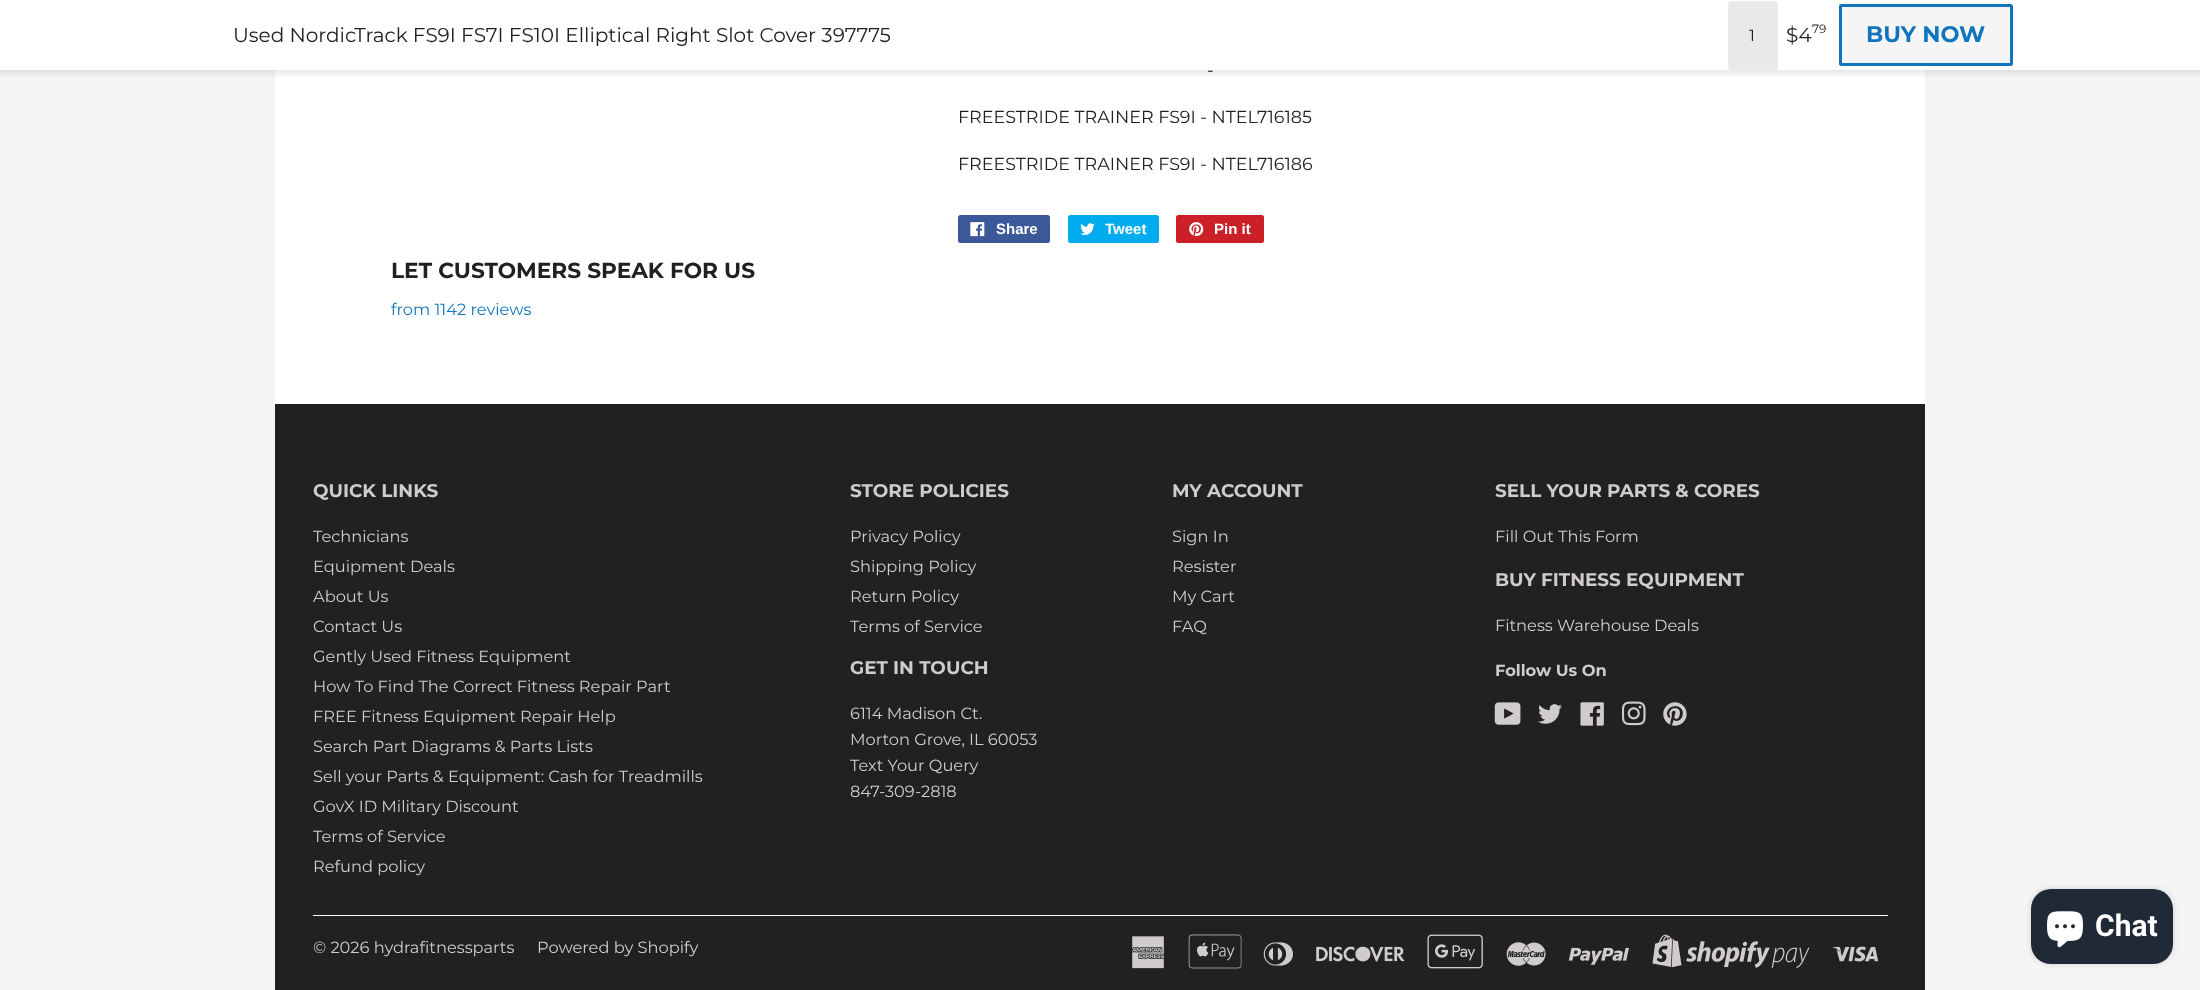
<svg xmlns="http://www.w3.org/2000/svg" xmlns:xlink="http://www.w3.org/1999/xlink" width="2200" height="990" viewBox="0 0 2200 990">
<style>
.cls-1{font:20px Montserrat;fill:#212121}
.cls-2{font:16.25px Montserrat;fill:#212121}
.cls-3{font:12px Montserrat;fill:#212121}
.cls-4{font:bold 22.5px Montserrat;fill:#1075bc}
.cls-5{font:17.5px Montserrat;fill:#212121}
.cls-6{font:bold 15px Liberation Sans;fill:#ffffff}
.cls-7{font:bold 21.7px Montserrat;fill:#212121}
.cls-8{font:16.25px Montserrat;fill:#1075bc}
.cls-9{font:bold 18.4px Montserrat;fill:#d0cccc}
.cls-10{font:16.25px Montserrat;fill:#d0cccc}
.cls-11{font:bold 16.25px Montserrat;fill:#d0cccc}
.cls-12{font:bold 30px Roboto;fill:#ffffff}
</style>
<defs>
<linearGradient id="g1" gradientUnits="userSpaceOnUse" x1="1100" y1="70" x2="1100" y2="79"><stop offset="0" stop-color="#000000" stop-opacity="0.09"/><stop offset="1" stop-color="#000000" stop-opacity="0"/></linearGradient>
</defs>
<rect width="100%" height="100%" fill="#f5f5f5"/>
<rect fill="#ffffff" x="0" y="0" width="2200" height="70"/>
<rect fill="#e9e9e9" stroke="#ececec" x="1728.5" y="1.5" width="49" height="68" rx="2"/>
<rect fill="#f5f5f5" stroke="#1075bc" stroke-width="3" x="1840.5" y="5.5" width="171" height="59" rx="1"/>
<rect fill="#ffffff" x="275" y="70" width="1650" height="334"/>
<rect fill="url(#g1)" x="0" y="70" width="2200" height="7"/>
<rect fill="#3b5998" x="958" y="215" width="92" height="28" rx="2.5"/>
<image xlink:href="image0.png" x="970" y="222" width="15" height="15"/>
<rect fill="#00aced" x="1068" y="215" width="91" height="28" rx="2.5"/>
<image xlink:href="image1.png" x="1080" y="223" width="15" height="12"/>
<rect fill="#cb2027" x="1176" y="215" width="88" height="28" rx="2.5"/>
<image xlink:href="image2.png" x="1189" y="222" width="15" height="15"/>
<rect fill="#212121" x="275" y="404" width="1650" height="586"/>
<image xlink:href="image3.png" x="1494" y="702" width="27" height="23"/>
<image xlink:href="image4.png" x="1538" y="704" width="24" height="20"/>
<image xlink:href="image5.png" x="1580" y="702" width="24" height="24"/>
<image xlink:href="image6.png" x="1621" y="701" width="25" height="25"/>
<image xlink:href="image7.png" x="1663" y="702" width="24" height="24"/>
<rect fill="#ffffff" x="313" y="915" width="1575" height="1"/>
<image xlink:href="image8.png" x="1132" y="936" width="32" height="33"/>
<image xlink:href="image9.png" x="1188" y="934" width="54" height="35"/>
<image xlink:href="image10.png" x="1263" y="942" width="30" height="24"/>
<image xlink:href="image11.png" x="1316" y="946" width="89" height="16"/>
<image xlink:href="image12.png" x="1427" y="934" width="56" height="35"/>
<image xlink:href="image13.png" x="1506" y="942" width="40" height="24"/>
<image xlink:href="image14.png" x="1568" y="947" width="61" height="18"/>
<image xlink:href="image15.png" x="1652" y="934" width="158" height="34"/>
<image xlink:href="image16.png" x="1832" y="946" width="47" height="16"/>
<rect fill="#000000" fill-opacity="0.15" filter="blur(3px)" x="2031" y="889" width="142" height="75" rx="20"/>
<rect fill="#202a36" x="2031" y="889" width="142" height="75" rx="20"/>
<image xlink:href="image17.png" x="2047" y="911" width="36" height="37"/>
<text class="cls-1" x="233" y="42">Used NordicTrack FS9I FS7I FS10I Elliptical Right Slot Cover 397775</text>
<text class="cls-2" x="1749" y="41">1</text>
<text class="cls-1" x="1786" y="42">$4</text>
<text class="cls-3" x="1812" y="33">79</text>
<text class="cls-4" x="1866" y="42">BUY NOW</text>
<text class="cls-5" x="1207" y="76">-</text>
<text class="cls-5" x="958" y="123">FREESTRIDE TRAINER FS9I - NTEL716185</text>
<text class="cls-5" x="958" y="170">FREESTRIDE TRAINER FS9I - NTEL716186</text>
<text class="cls-6" x="996" y="234">Share</text>
<text class="cls-6" x="1105" y="234">Tweet</text>
<text class="cls-6" x="1214" y="234">Pin it</text>
<text class="cls-7" x="391" y="278">LET CUSTOMERS SPEAK FOR US</text>
<text class="cls-8" x="391" y="315">from 1142 reviews</text>
<text class="cls-9" x="313" y="497">QUICK LINKS</text>
<text class="cls-10"><tspan x="313" y="542">Technicians</tspan><tspan x="313" y="572">Equipment Deals</tspan><tspan x="313" y="602">About Us</tspan><tspan x="313" y="632">Contact Us</tspan><tspan x="313" y="662">Gently Used Fitness Equipment</tspan><tspan x="313" y="692">How To Find The Correct Fitness Repair Part</tspan><tspan x="313" y="722">FREE Fitness Equipment Repair Help</tspan><tspan x="313" y="752">Search Part Diagrams &amp; Parts Lists</tspan><tspan x="313" y="782">Sell your Parts &amp; Equipment: Cash for Treadmills</tspan><tspan x="313" y="812">GovX ID Military Discount</tspan><tspan x="313" y="842">Terms of Service</tspan><tspan x="313" y="872">Refund policy</tspan></text>
<text class="cls-9" x="850" y="497">STORE POLICIES</text>
<text class="cls-10"><tspan x="850" y="542">Privacy Policy</tspan><tspan x="850" y="572">Shipping Policy</tspan><tspan x="850" y="602">Return Policy</tspan><tspan x="850" y="632">Terms of Service</tspan></text>
<text class="cls-9" x="850" y="674">GET IN TOUCH</text>
<text class="cls-10"><tspan x="850" y="719">6114 Madison Ct.</tspan><tspan x="850" y="745">Morton Grove, IL 60053</tspan><tspan x="850" y="771">Text Your Query</tspan><tspan x="850" y="797">847-309-2818</tspan></text>
<text class="cls-9" x="1172" y="497">MY ACCOUNT</text>
<text class="cls-10"><tspan x="1172" y="542">Sign In</tspan><tspan x="1172" y="572">Resister</tspan><tspan x="1172" y="602">My Cart</tspan><tspan x="1172" y="632">FAQ</tspan></text>
<text class="cls-9" x="1495" y="497">SELL YOUR PARTS &amp; CORES</text>
<text class="cls-10" x="1495" y="542">Fill Out This Form</text>
<text class="cls-9" x="1495" y="586">BUY FITNESS EQUIPMENT</text>
<text class="cls-10" x="1495" y="631">Fitness Warehouse Deals</text>
<text class="cls-11" x="1495" y="676">Follow Us On</text>
<text class="cls-10" x="313" y="953">© 2026 hydrafitnessparts</text>
<text class="cls-10" x="537" y="953">Powered by Shopify</text>
<text class="cls-12" x="2095" y="936">Chat</text>
</svg>
